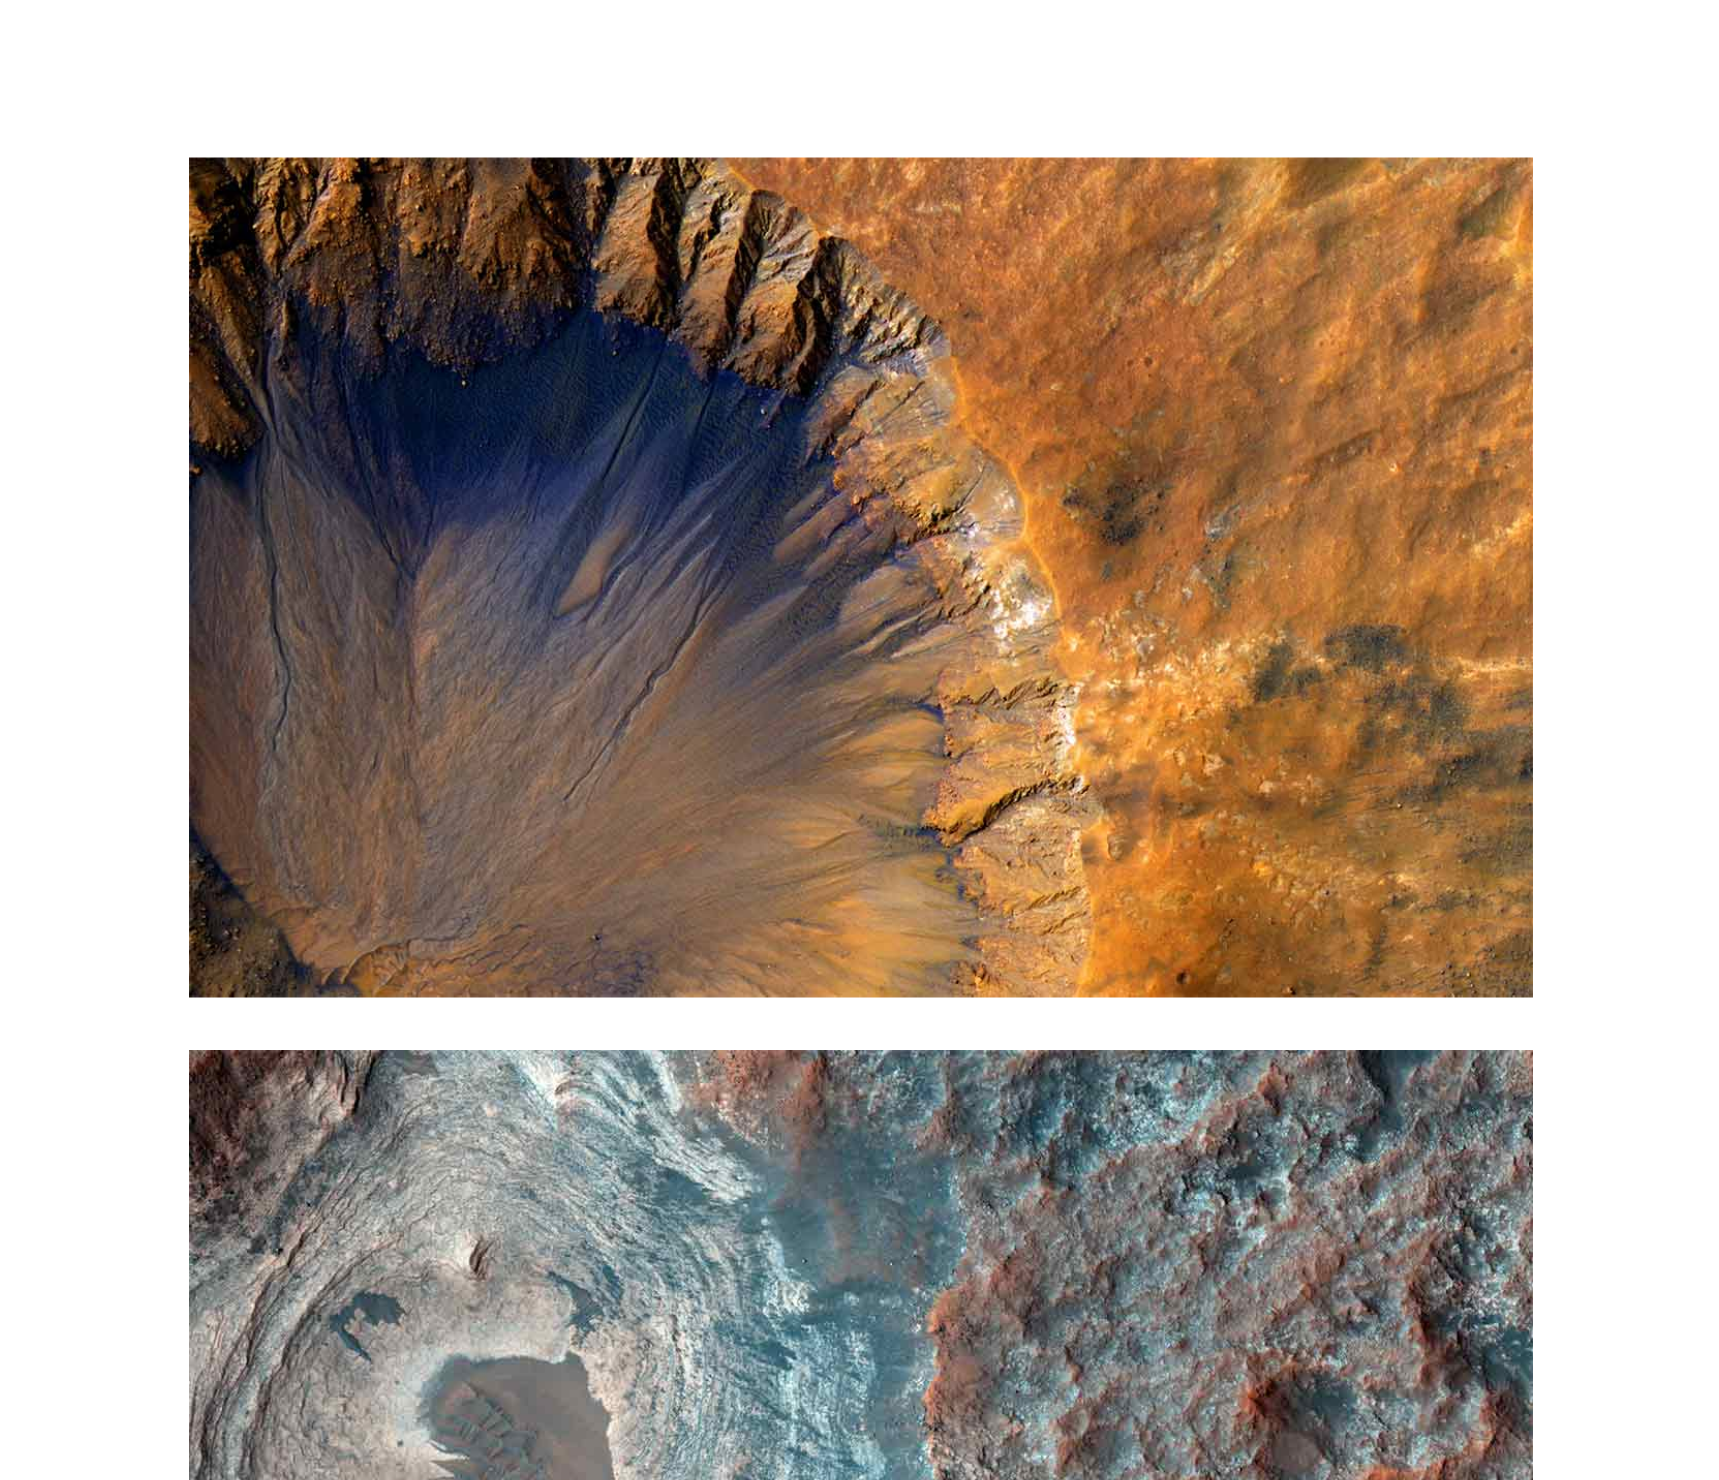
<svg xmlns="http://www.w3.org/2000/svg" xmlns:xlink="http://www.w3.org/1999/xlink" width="1719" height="1480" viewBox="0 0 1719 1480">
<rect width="100%" height="100%" fill="#ffffff"/>
<image xlink:href="image0.png" x="189" y="157" width="1344" height="841"/>
<image xlink:href="image1.png" x="189" y="1050" width="1344" height="430"/>
</svg>
